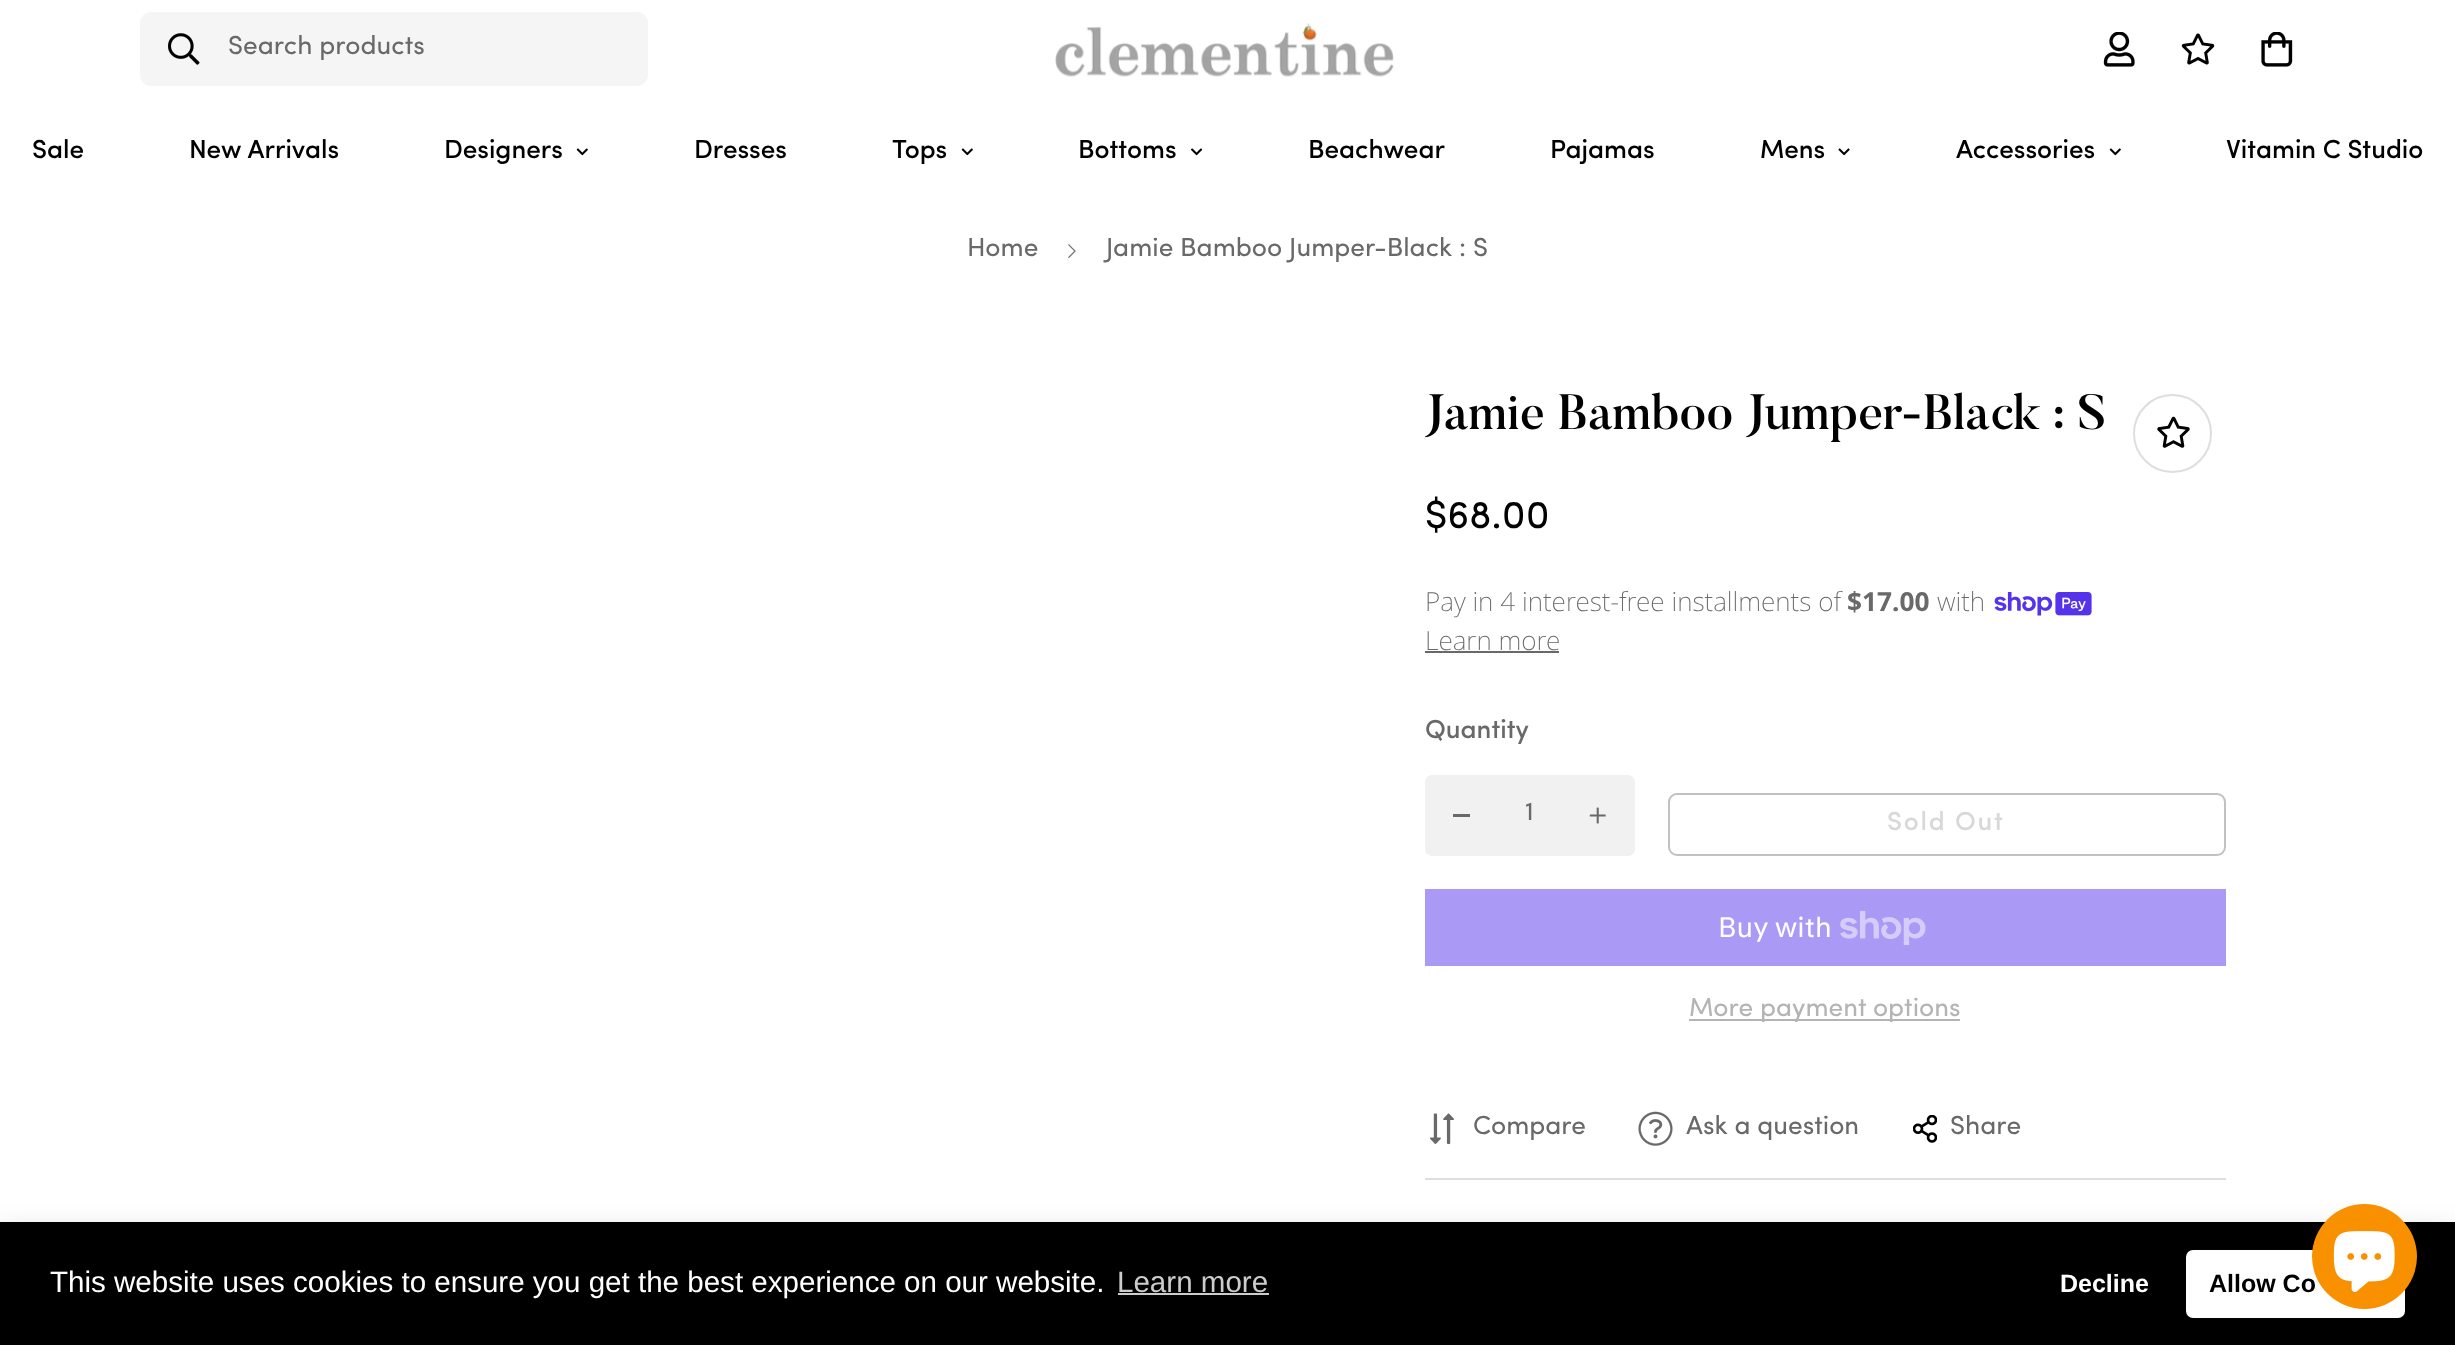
<svg xmlns="http://www.w3.org/2000/svg" xmlns:xlink="http://www.w3.org/1999/xlink" width="2455" height="1345" viewBox="0 0 2455 1345">
<style>
.cls-1{font:26.25px Sofia;fill:#696969}
.cls-2{font:500 26.25px Sofia;fill:#000000}
.cls-3{font:500 49.25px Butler;fill:#000000}
.cls-4{font:39.5px Sofia;fill:#000000}
.cls-5{font:200 26.25px Noto Sans;fill:#696969}
.cls-6{font:bold 26.25px Noto Sans;fill:#696969}
.cls-7{font:500 26.25px Sofia;fill:#696969}
.cls-8{font:500 26.25px Sofia;letter-spacing:1.75px;fill:#d8d8d8}
.cls-9{font:28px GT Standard;fill:#ffffff}
.cls-10{font:26.25px Sofia;fill:#b4b4b4}
.cls-11{font:29.55px Liberation Sans;fill:#ffffff}
.cls-12{font:29.55px Liberation Sans;fill:#cccccc}
.cls-13{font:bold 25px Liberation Sans;fill:#ffffff}
.cls-14{font:bold 25px Liberation Sans;fill:#000000}
</style>
<rect width="100%" height="100%" fill="#ffffff"/>
<rect fill="#f5f5f5" x="140" y="12" width="508" height="74" rx="11"/>
<image xlink:href="image0.png" x="168" y="33" width="32" height="32"/>
<image xlink:href="image1.png" x="1055" y="23" width="339" height="54"/>
<image xlink:href="image2.png" x="2103" y="32" width="32" height="35"/>
<image xlink:href="image3.png" x="2181" y="33" width="34" height="32"/>
<image xlink:href="image4.png" x="2261" y="32" width="32" height="35"/>
<image xlink:href="image5.png" x="576" y="148" width="12" height="8"/>
<image xlink:href="image5.png" x="961" y="148" width="12" height="8"/>
<image xlink:href="image6.png" x="1191" y="148" width="11" height="8"/>
<image xlink:href="image7.png" x="1838" y="148" width="12" height="8"/>
<image xlink:href="image5.png" x="2109" y="148" width="12" height="8"/>
<image xlink:href="image8.png" x="1068" y="244" width="8" height="14"/>
<circle fill="none" stroke="#dedede" stroke-width="2" cx="2172.5" cy="433.5" r="38.5"/>
<image xlink:href="image9.png" x="2157" y="416" width="33" height="32"/>
<image xlink:href="image10.png" x="1994" y="592" width="98" height="24"/>
<rect fill="#696969" x="1425" y="651" width="134" height="2"/>
<rect fill="#f1f1f1" x="1425" y="775" width="210" height="81" rx="7"/>
<rect fill="#696969" x="1453" y="814" width="17" height="3"/>
<image xlink:href="image11.png" x="1589" y="807" width="17" height="17"/>
<rect fill="none" stroke="#c1c1c1" stroke-width="2" x="1669" y="794" width="556" height="61" rx="8"/>
<rect fill="#aa99f5" x="1425" y="889" width="801" height="77"/>
<image xlink:href="image12.png" x="1840" y="910" width="86" height="35"/>
<rect fill="#b4b4b4" x="1689" y="1019" width="271" height="2"/>
<rect fill="#dedede" x="1425" y="1178" width="801" height="2"/>
<image xlink:href="image13.png" x="1430" y="1113" width="24" height="32"/>
<image xlink:href="image14.png" x="1638" y="1111" width="35" height="35"/>
<image xlink:href="image15.png" x="1913" y="1115" width="24" height="28"/>
<rect fill="#000000" fill-opacity="0.15" filter="blur(13px)" x="0" y="1230" width="2455" height="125"/>
<rect fill="#000000" x="0" y="1222" width="2455" height="123"/>
<rect fill="#cccccc" x="1118" y="1293" width="151" height="2"/>
<rect fill="#ffffff" x="2186" y="1250" width="219" height="68" rx="7"/>
<text class="cls-1" x="228" y="54">Search products</text>
<text class="cls-2" x="32" y="158">Sale</text>
<text class="cls-2" x="189" y="158">New Arrivals</text>
<text class="cls-2" x="444" y="158">Designers</text>
<text class="cls-2" x="694" y="158">Dresses</text>
<text class="cls-2" x="892" y="158">Tops</text>
<text class="cls-2" x="1078" y="158">Bottoms</text>
<text class="cls-2" x="1308" y="158">Beachwear</text>
<text class="cls-2" x="1550" y="158">Pajamas</text>
<text class="cls-2" x="1760" y="158">Mens</text>
<text class="cls-2" x="1956" y="158">Accessories</text>
<text class="cls-2" x="2226" y="158">Vitamin C Studio</text>
<text class="cls-1" x="967" y="256">Home</text>
<text class="cls-1" x="1106" y="256">Jamie Bamboo Jumper-Black : S</text>
<text class="cls-3" x="1425" y="429">Jamie Bamboo Jumper-Black : S</text>
<text class="cls-4" x="1425" y="528">$68.00</text>
<text class="cls-5" x="1425" y="611">Pay in 4 interest-free installments of</text>
<text class="cls-6" x="1847" y="611">$17.00</text>
<text class="cls-5" x="1937" y="611">with</text>
<text class="cls-5" x="1425" y="650">Learn more</text>
<text class="cls-7" x="1425" y="738">Quantity</text>
<text class="cls-1" x="1525" y="820">1</text>
<text class="cls-8" x="1887" y="830">Sold Out</text>
<text class="cls-9" x="1718" y="937">Buy with</text>
<text class="cls-10" x="1689" y="1016">More payment options</text>
<text class="cls-1" x="1473" y="1134">Compare</text>
<text class="cls-1" x="1686" y="1134">Ask a question</text>
<text class="cls-1" x="1950" y="1134">Share</text>
<text class="cls-11" x="50" y="1292">This website uses cookies to ensure you get the best experience on our website.</text>
<text class="cls-12" x="1117" y="1292">Learn more</text>
<text class="cls-13" x="2060" y="1292">Decline</text>
<text class="cls-14" x="2209" y="1292">Allow Co</text>
<circle fill="#f99000" cx="2364.5" cy="1256.5" r="52.5"/>
<image xlink:href="image16.png" x="2333" y="1231" width="62" height="61"/>
</svg>
